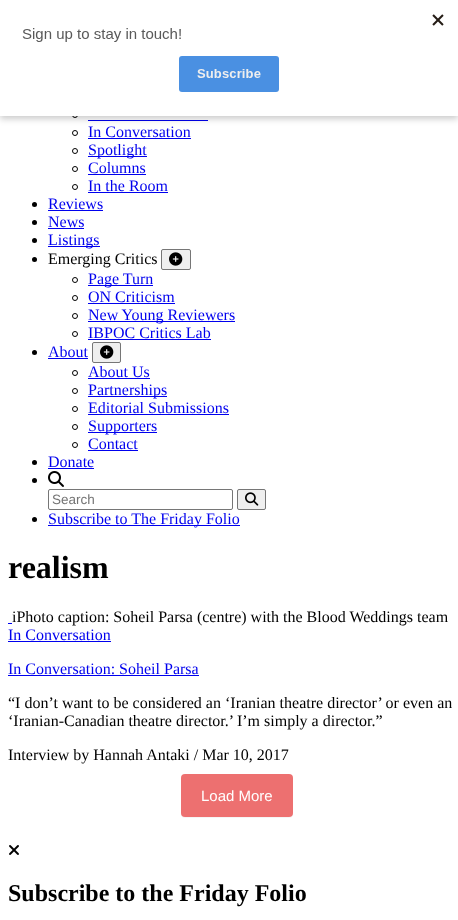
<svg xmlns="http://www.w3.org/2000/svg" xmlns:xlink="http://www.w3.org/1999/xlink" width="458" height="920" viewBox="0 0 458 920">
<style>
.cls-1{font:16px Liberation Serif;fill:#0000ee}
.cls-2{font:16px Liberation Serif;fill:#000000}
.cls-3{font:13.5px Liberation Sans;fill:#757575}
.cls-4{font:bold 32px Liberation Serif;fill:#000000}
.cls-5{font:15px Liberation Sans;fill:#ffffff}
.cls-6{font:bold 24px Liberation Serif;fill:#000000}
</style>
<rect width="100%" height="100%" fill="#ffffff"/>
<circle fill="none" stroke="#000000" cx="75" cy="115" r="2.5"/>
<rect fill="#0000ee" x="88" y="120" width="120" height="1"/>
<rect fill="#000000" fill-opacity="0.2" filter="blur(3px)" x="0" y="3" width="458" height="116"/>
<rect fill="#ffffff" x="0" y="0" width="458" height="116"/>
<image xlink:href="image0.png" x="22" y="14" width="422" height="78"/>
<circle fill="none" stroke="#000000" cx="75" cy="133" r="2.5"/>
<rect fill="#0000ee" x="88" y="138" width="103" height="1"/>
<circle fill="none" stroke="#000000" cx="75" cy="151" r="2.5"/>
<rect fill="#0000ee" x="88" y="156" width="59" height="1"/>
<circle fill="none" stroke="#000000" cx="75" cy="169" r="2.5"/>
<rect fill="#0000ee" x="88" y="174" width="58" height="1"/>
<circle fill="none" stroke="#000000" cx="75" cy="187" r="2.5"/>
<rect fill="#0000ee" x="88" y="192" width="80" height="1"/>
<circle fill="#000000" cx="34.5" cy="204.5" r="2.5"/>
<rect fill="#0000ee" x="48" y="210" width="55" height="1"/>
<circle fill="#000000" cx="34.5" cy="222.5" r="2.5"/>
<rect fill="#0000ee" x="48" y="228" width="36" height="1"/>
<circle fill="#000000" cx="34.5" cy="240.5" r="2.5"/>
<rect fill="#0000ee" x="48" y="246" width="52" height="1"/>
<circle fill="#000000" cx="34.5" cy="259.5" r="2.5"/>
<rect fill="#efefef" stroke="#767676" x="161.5" y="249.5" width="29" height="20" rx="1.5"/>
<image xlink:href="image1.png" x="169" y="252" width="14" height="14"/>
<circle fill="none" stroke="#000000" cx="75" cy="280" r="2.5"/>
<rect fill="#0000ee" x="88" y="285" width="65" height="1"/>
<circle fill="none" stroke="#000000" cx="75" cy="298" r="2.5"/>
<rect fill="#0000ee" x="88" y="303" width="87" height="1"/>
<circle fill="none" stroke="#000000" cx="75" cy="316" r="2.5"/>
<rect fill="#0000ee" x="88" y="321" width="147" height="1"/>
<circle fill="none" stroke="#000000" cx="75" cy="334" r="2.5"/>
<rect fill="#0000ee" x="88" y="339" width="123" height="1"/>
<circle fill="#000000" cx="34.5" cy="352.5" r="2.5"/>
<rect fill="#0000ee" x="48" y="358" width="40" height="1"/>
<rect fill="#efefef" stroke="#767676" x="92.5" y="342.5" width="28" height="20" rx="1.5"/>
<image xlink:href="image1.png" x="100" y="345" width="14" height="14"/>
<circle fill="none" stroke="#000000" cx="75" cy="373" r="2.5"/>
<rect fill="#0000ee" x="88" y="378" width="62" height="1"/>
<circle fill="none" stroke="#000000" cx="75" cy="391" r="2.5"/>
<rect fill="#0000ee" x="88" y="396" width="79" height="1"/>
<circle fill="none" stroke="#000000" cx="75" cy="409" r="2.5"/>
<rect fill="#0000ee" x="88" y="414" width="141" height="1"/>
<circle fill="none" stroke="#000000" cx="75" cy="427" r="2.5"/>
<rect fill="#0000ee" x="88" y="432" width="69" height="1"/>
<circle fill="none" stroke="#000000" cx="75" cy="445" r="2.5"/>
<rect fill="#0000ee" x="88" y="450" width="50" height="1"/>
<circle fill="#000000" cx="34.5" cy="462.5" r="2.5"/>
<rect fill="#0000ee" x="48" y="468" width="46" height="1"/>
<circle fill="#000000" cx="34.5" cy="480.5" r="2.5"/>
<image xlink:href="image2.png" x="48" y="471" width="16" height="16"/>
<rect fill="none" stroke="#767676" x="48.5" y="489.5" width="184" height="20" rx="1.5"/>
<rect fill="#efefef" stroke="#767676" x="237.5" y="489.5" width="28" height="20" rx="1.5"/>
<image xlink:href="image3.png" x="245" y="492" width="14" height="14"/>
<circle fill="#000000" cx="34.5" cy="519.5" r="2.5"/>
<rect fill="#0000ee" x="48" y="525" width="192" height="1"/>
<rect fill="#0000ee" x="8" y="623" width="4" height="1"/>
<rect fill="#0000ee" x="8" y="641" width="103" height="1"/>
<rect fill="#0000ee" x="8" y="675" width="191" height="1"/>
<rect fill="#000000" fill-opacity="0.04" filter="blur(0.5px)" x="181" y="775" width="112" height="43" rx="4"/>
<rect fill="#ed7070" x="181" y="774" width="112" height="43" rx="4"/>
<image xlink:href="image4.png" x="9" y="845" width="10" height="10"/>
<text class="cls-1"><tspan x="88" y="137">In Conversation</tspan><tspan x="88" y="155">Spotlight</tspan><tspan x="88" y="173">Columns</tspan><tspan x="88" y="191">In the Room</tspan></text>
<text class="cls-1"><tspan x="48" y="209">Reviews</tspan><tspan x="48" y="227">News</tspan><tspan x="48" y="245">Listings</tspan></text>
<text class="cls-2" x="48" y="264">Emerging Critics</text>
<text class="cls-1"><tspan x="88" y="284">Page Turn</tspan><tspan x="88" y="302">ON Criticism</tspan><tspan x="88" y="320">New Young Reviewers</tspan><tspan x="88" y="338">IBPOC Critics Lab</tspan></text>
<text class="cls-1" x="48" y="357">About</text>
<text class="cls-1"><tspan x="88" y="377">About Us</tspan><tspan x="88" y="395">Partnerships</tspan><tspan x="88" y="413">Editorial Submissions</tspan><tspan x="88" y="431">Supporters</tspan><tspan x="88" y="449">Contact</tspan></text>
<text class="cls-1" x="48" y="467">Donate</text>
<text class="cls-3" x="52" y="504">Search</text>
<text class="cls-1" x="48" y="524">Subscribe to The Friday Folio</text>
<text class="cls-4" x="8" y="578">realism</text>
<text class="cls-2" x="12" y="622">iPhoto caption: Soheil Parsa (centre) with the Blood Weddings team</text>
<text class="cls-1" x="8" y="640">In Conversation</text>
<text class="cls-1" x="8" y="674">In Conversation: Soheil Parsa</text>
<text class="cls-2"><tspan x="8" y="708">“I don’t want to be considered an ‘Iranian theatre director’ or even an</tspan><tspan x="8" y="726">‘Iranian-Canadian theatre director.’ I’m simply a director.”</tspan></text>
<text class="cls-2" x="8" y="760">Interview by Hannah Antaki / Mar 10, 2017</text>
<text class="cls-5" x="201" y="801">Load More</text>
<text class="cls-6" x="8" y="901">Subscribe to the Friday Folio</text>
</svg>
